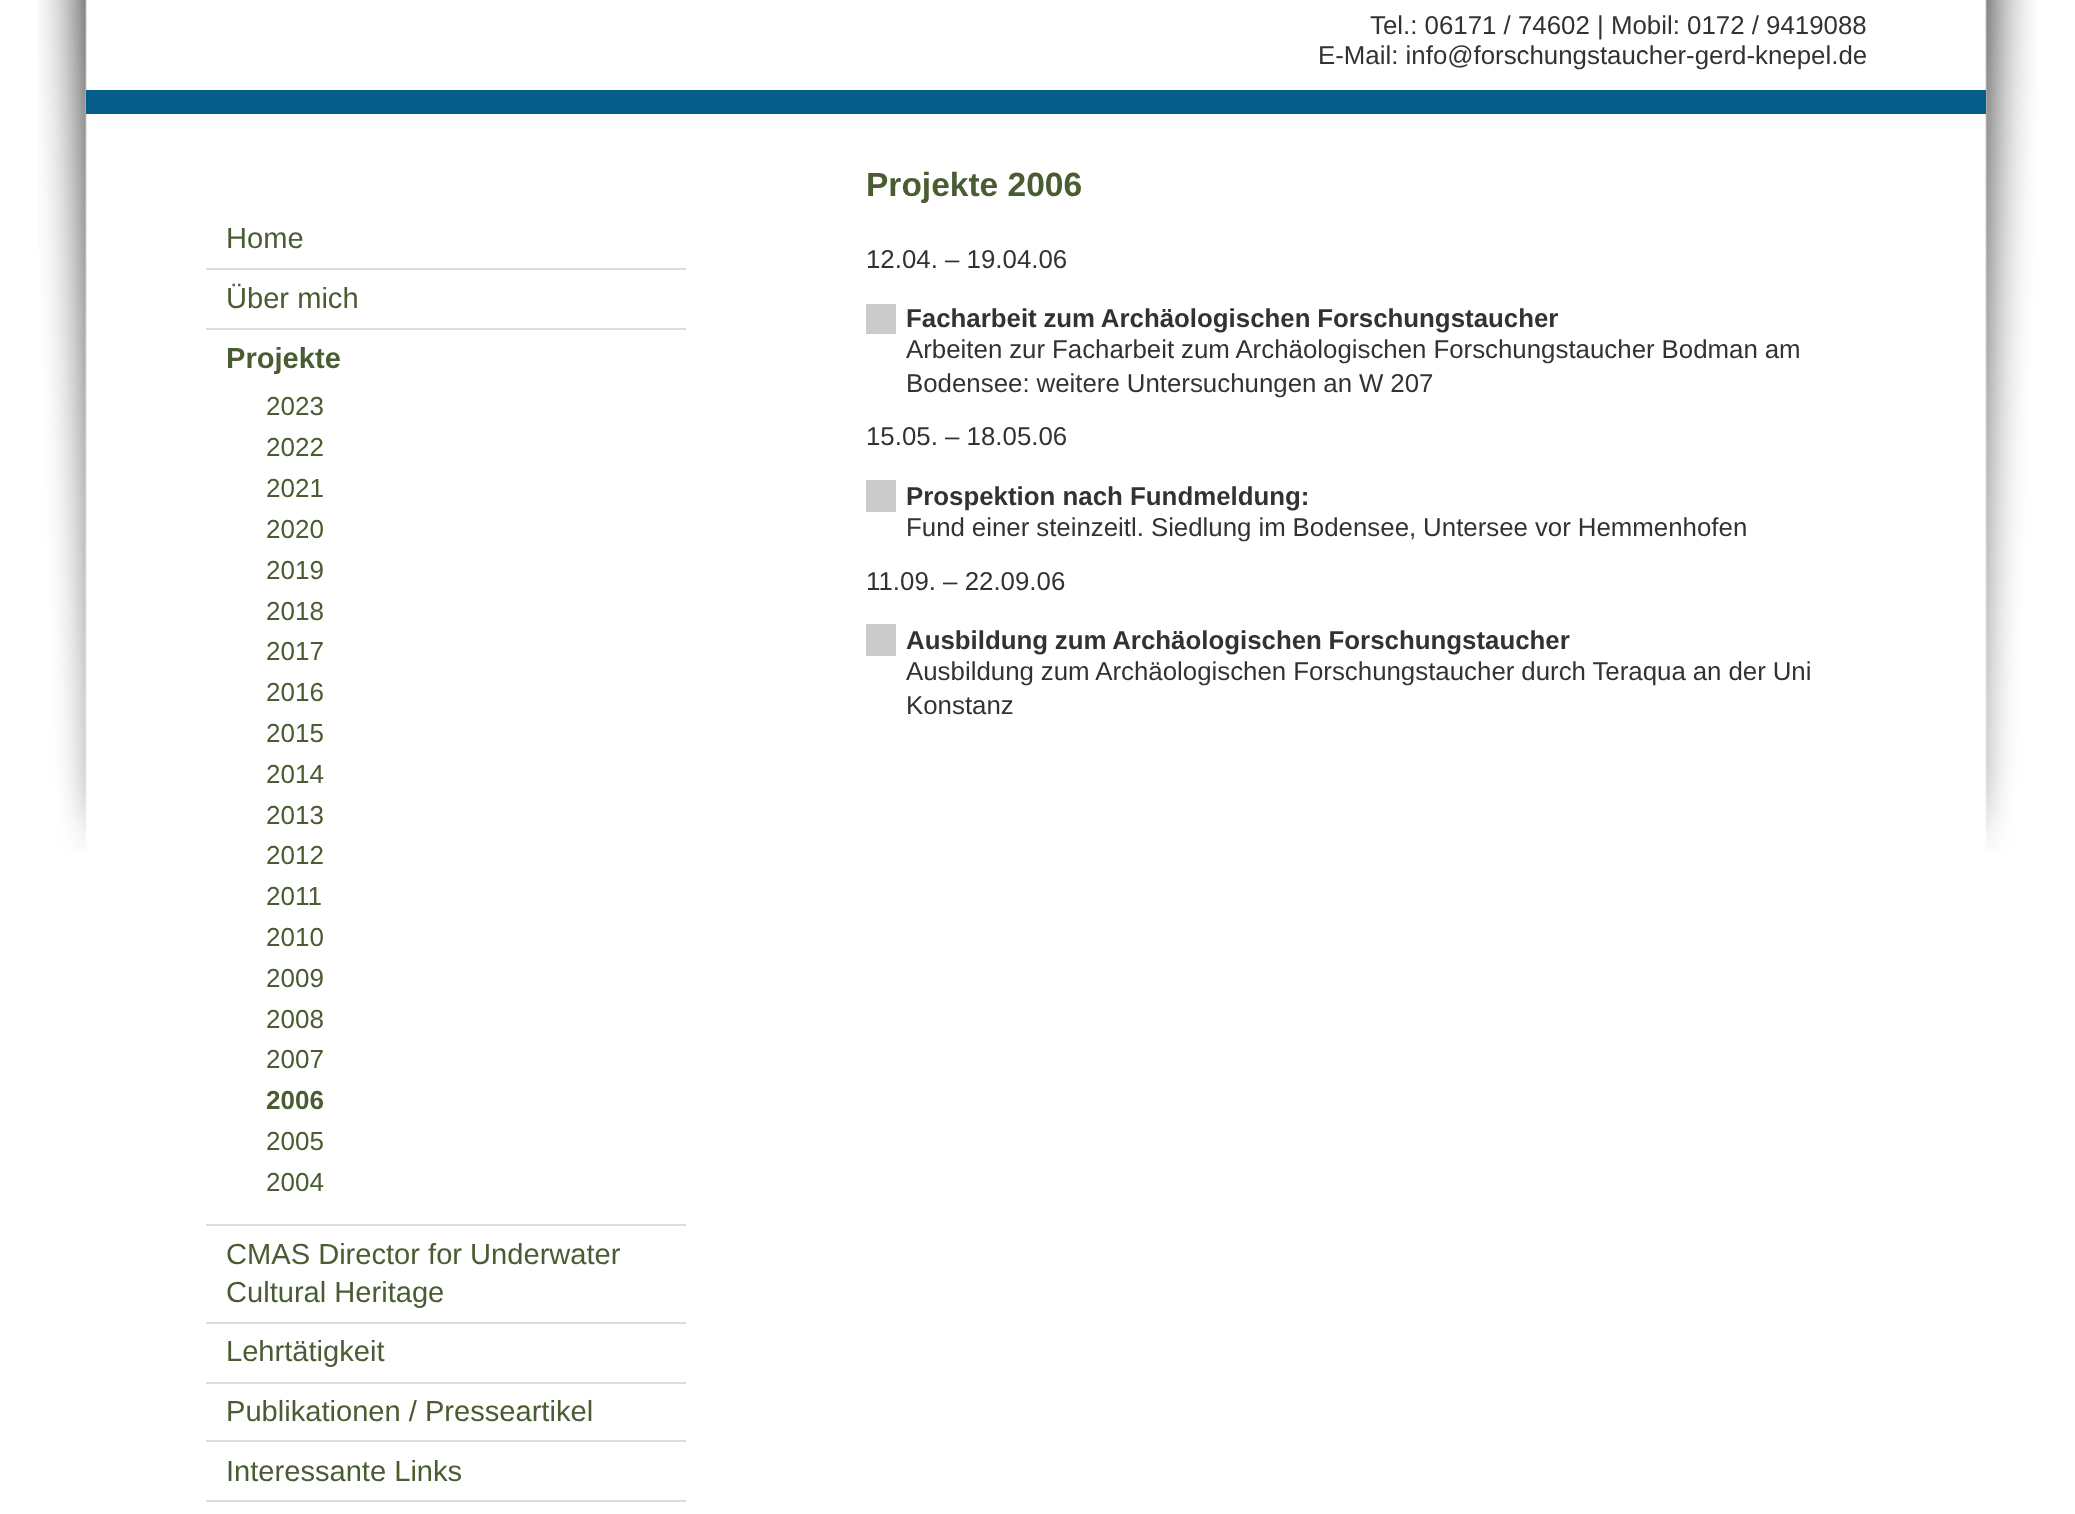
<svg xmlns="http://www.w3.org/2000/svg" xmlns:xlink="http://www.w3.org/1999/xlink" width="2075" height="1514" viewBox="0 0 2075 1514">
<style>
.cls-1{font:25.85px Liberation Sans;fill:#323232}
.cls-2{font:29.1px Liberation Sans;fill:#495c32}
.cls-3{font:bold 29.1px Liberation Sans;fill:#495c32}
.cls-4{font:26px Liberation Sans;fill:#495c32}
.cls-5{font:bold 26px Liberation Sans;fill:#495c32}
.cls-6{font:bold 33.5px Liberation Sans;fill:#495c32}
.cls-7{font:bold 25.85px Liberation Sans;fill:#323232}
</style>
<rect width="100%" height="100%" fill="#ffffff"/>
<image xlink:href="image0.png" x="38" y="0" width="1999" height="851"/>
<rect fill="#055d8a" x="86" y="90" width="1900" height="24"/>
<rect fill="#dddddd" x="206" y="268" width="480" height="2"/>
<rect fill="#dddddd" x="206" y="328" width="480" height="2"/>
<rect fill="#dddddd" x="206" y="1224" width="480" height="2"/>
<rect fill="#dddddd" x="206" y="1322" width="480" height="2"/>
<rect fill="#dddddd" x="206" y="1382" width="480" height="2"/>
<rect fill="#dddddd" x="206" y="1440" width="480" height="2"/>
<rect fill="#dddddd" x="206" y="1500" width="480" height="2"/>
<rect fill="#cbcbcb" x="866" y="304" width="30" height="30"/>
<rect fill="#cbcbcb" x="866" y="480" width="30" height="32"/>
<rect fill="#cbcbcb" x="866" y="624" width="30" height="32"/>
<text class="cls-1" x="1370" y="34">Tel.: 06171 / 74602 | Mobil: 0172 / 9419088</text>
<text class="cls-1" x="1318" y="64">E-Mail: info@forschungstaucher-gerd-knepel.de</text>
<text class="cls-2" x="226" y="248">Home</text>
<text class="cls-2" x="226" y="308">Über mich</text>
<text class="cls-3" x="226" y="368">Projekte</text>
<text class="cls-4"><tspan x="266" y="415">2023</tspan><tspan x="266" y="456">2022</tspan><tspan x="266" y="497">2021</tspan><tspan x="266" y="538">2020</tspan><tspan x="266" y="579">2019</tspan><tspan x="266" y="620">2018</tspan><tspan x="266" y="660">2017</tspan><tspan x="266" y="701">2016</tspan><tspan x="266" y="742">2015</tspan><tspan x="266" y="783">2014</tspan><tspan x="266" y="824">2013</tspan><tspan x="266" y="864">2012</tspan><tspan x="266" y="905">2011</tspan><tspan x="266" y="946">2010</tspan><tspan x="266" y="987">2009</tspan><tspan x="266" y="1028">2008</tspan><tspan x="266" y="1068">2007</tspan></text>
<text class="cls-5" x="266" y="1109">2006</text>
<text class="cls-4"><tspan x="266" y="1150">2005</tspan><tspan x="266" y="1191">2004</tspan></text>
<text class="cls-2"><tspan x="226" y="1264">CMAS Director for Underwater</tspan><tspan x="226" y="1302">Cultural Heritage</tspan></text>
<text class="cls-2" x="226" y="1361">Lehrtätigkeit</text>
<text class="cls-2" x="226" y="1421">Publikationen / Presseartikel</text>
<text class="cls-2" x="226" y="1481">Interessante Links</text>
<text class="cls-6" x="866" y="196">Projekte 2006</text>
<text class="cls-1" x="866" y="268">12.04. – 19.04.06</text>
<text class="cls-7" x="906" y="327" word-spacing="-0.5">Facharbeit zum Archäologischen Forschungstaucher</text>
<text class="cls-1"><tspan x="906" y="358" word-spacing="-0.25">Arbeiten zur Facharbeit zum Archäologischen Forschungstaucher Bodman am</tspan><tspan x="906" y="392" word-spacing="-0.25">Bodensee: weitere Untersuchungen an W 207</tspan></text>
<text class="cls-1" x="866" y="445">15.05. – 18.05.06</text>
<text class="cls-7" x="906" y="505">Prospektion nach Fundmeldung:</text>
<text class="cls-1" x="906" y="536" word-spacing="-0.25">Fund einer steinzeitl. Siedlung im Bodensee, Untersee vor Hemmenhofen</text>
<text class="cls-1" x="866" y="590">11.09. – 22.09.06</text>
<text class="cls-7" x="906" y="649" word-spacing="-0.5">Ausbildung zum Archäologischen Forschungstaucher</text>
<text class="cls-1"><tspan x="906" y="680" word-spacing="-0.25">Ausbildung zum Archäologischen Forschungstaucher durch Teraqua an der Uni</tspan><tspan x="906" y="714">Konstanz</tspan></text>
</svg>
